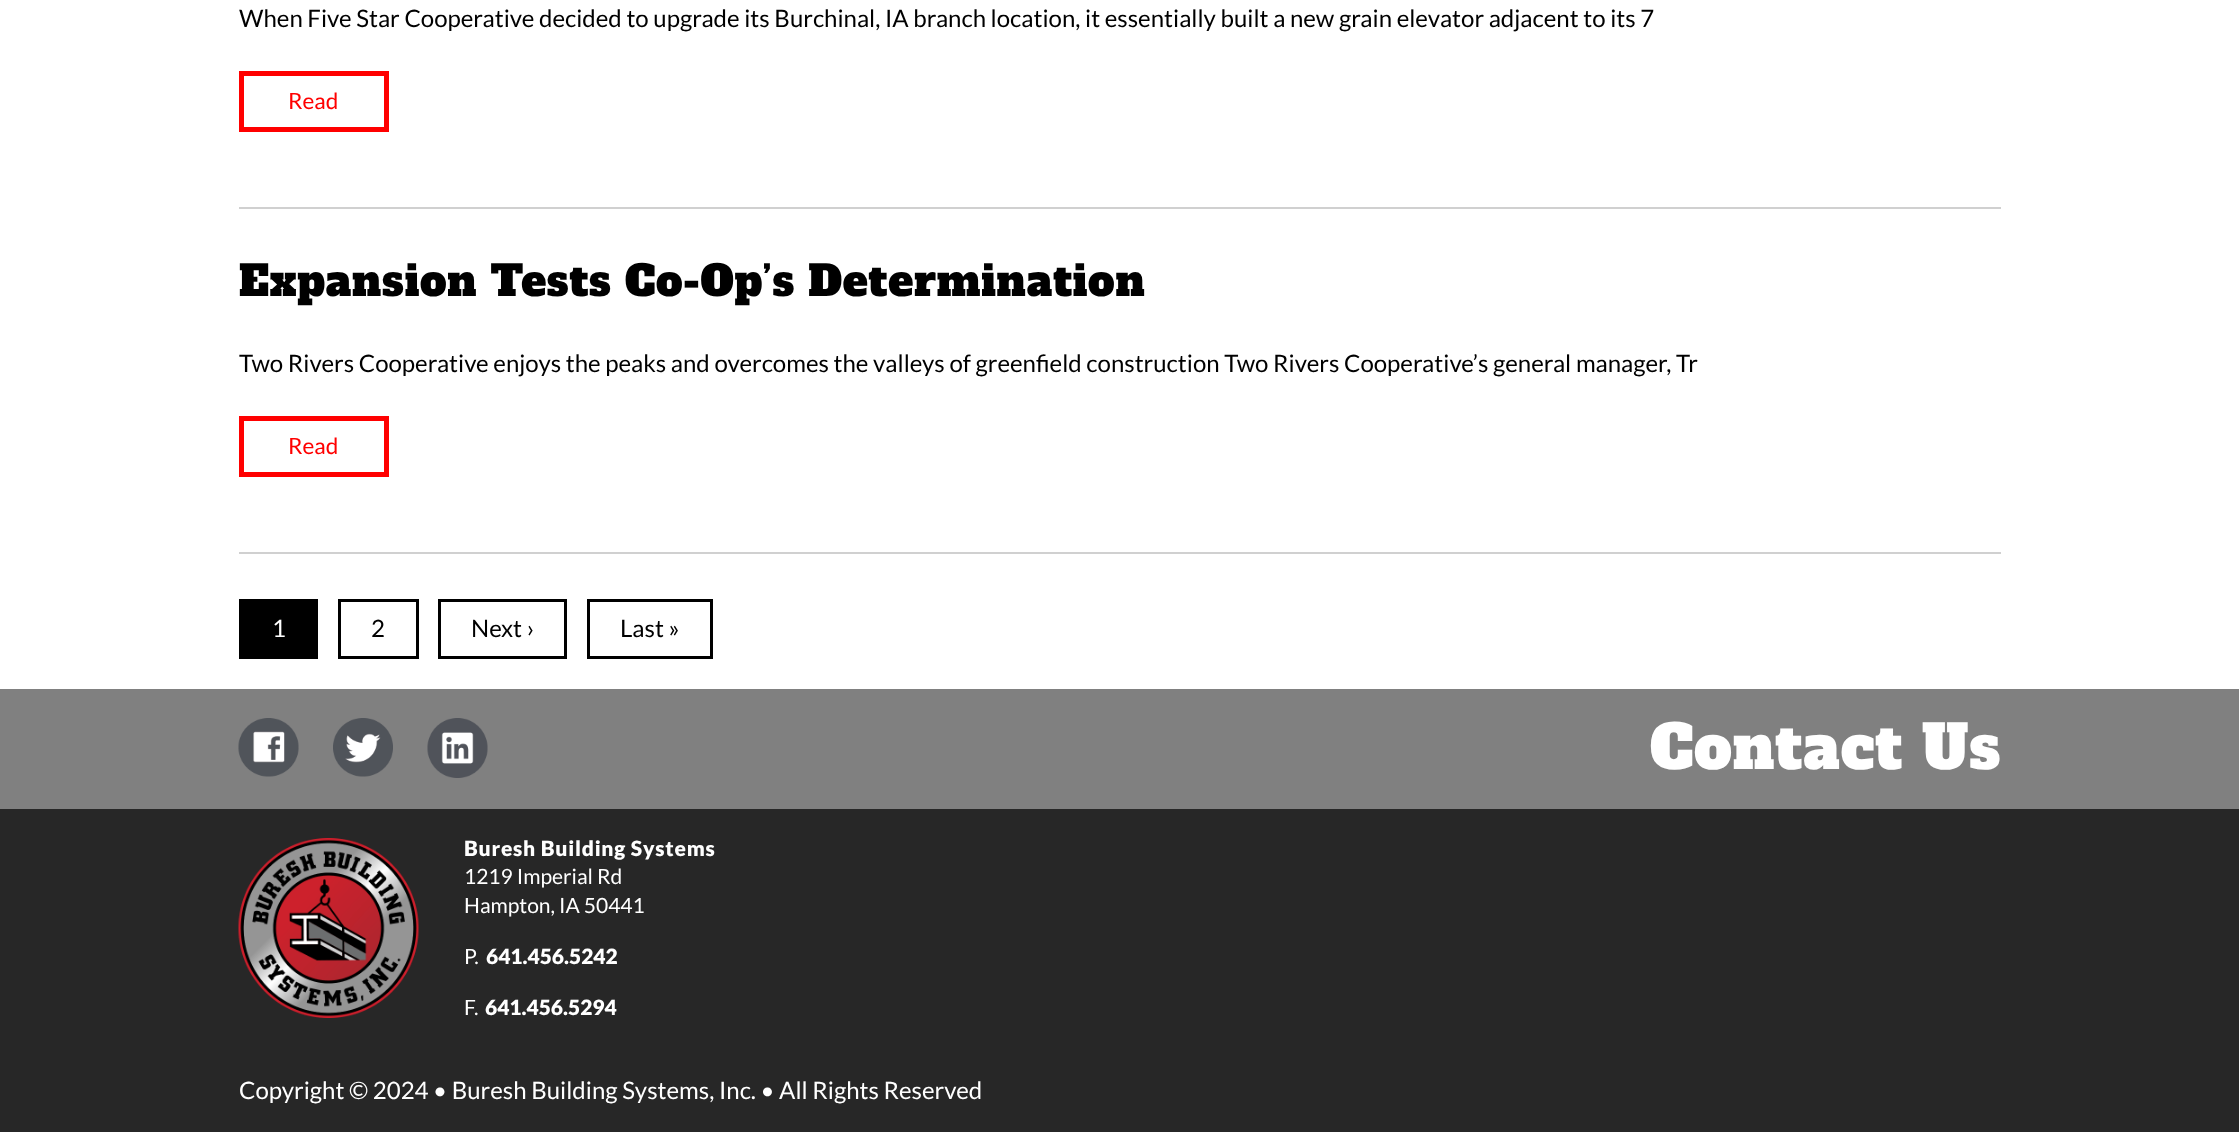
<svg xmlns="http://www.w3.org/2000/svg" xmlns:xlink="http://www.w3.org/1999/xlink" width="2239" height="1132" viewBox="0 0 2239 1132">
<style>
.cls-1{font:24px Lato;fill:#000000}
.cls-2{font:22.5px Lato;fill:#ff0000}
.cls-3{font:42px Alfa Slab One;letter-spacing:0.75px;fill:#000000}
.cls-4{font:24px Lato;fill:#ffffff}
.cls-5{font:60px Alfa Slab One;letter-spacing:0.75px;fill:#ffffff}
.cls-6{font:900 21px Lato;letter-spacing:0.75px;fill:#ffffff}
.cls-7{font:21px Lato;fill:#ffffff}
.cls-8{font:900 21px Lato;fill:#ffffff}
</style>
<rect width="100%" height="100%" fill="#ffffff"/>
<rect fill="#d0d0d0" x="239" y="207" width="1762" height="2"/>
<rect fill="none" stroke="#ff0000" stroke-width="5" x="241.5" y="73.5" width="145" height="56"/>
<rect fill="#d0d0d0" x="239" y="552" width="1762" height="2"/>
<rect fill="none" stroke="#ff0000" stroke-width="5" x="241.5" y="418.5" width="145" height="56"/>
<rect fill="#000000" x="239" y="599" width="79" height="60"/>
<rect fill="none" stroke="#000000" stroke-width="3" x="339.5" y="600.5" width="78" height="57"/>
<rect fill="none" stroke="#000000" stroke-width="3" x="439.5" y="600.5" width="126" height="57"/>
<rect fill="none" stroke="#000000" stroke-width="3" x="588.5" y="600.5" width="123" height="57"/>
<rect fill="#808080" x="0" y="689" width="2239" height="120"/>
<image xlink:href="image0.png" x="238" y="718" width="61" height="59"/>
<image xlink:href="image1.png" x="333" y="718" width="60" height="59"/>
<image xlink:href="image2.png" x="427" y="718" width="61" height="60"/>
<rect fill="#272727" x="0" y="809" width="2239" height="323"/>
<image xlink:href="image3.png" x="238" y="838" width="181" height="180"/>
<text class="cls-1" x="239" y="27">When Five Star Cooperative decided to upgrade its Burchinal, IA branch location, it essentially built a new grain elevator adjacent to its 7</text>
<text class="cls-2" x="288" y="109">Read</text>
<text class="cls-3" x="239" y="296">Expansion Tests Co-Op’s Determination</text>
<text class="cls-1" x="239" y="372">Two Rivers Cooperative enjoys the peaks and overcomes the valleys of greenfield construction Two Rivers Cooperative’s general manager, Tr</text>
<text class="cls-2" x="288" y="454">Read</text>
<text class="cls-4" x="272" y="637">1</text>
<text class="cls-1" x="371" y="637">2</text>
<text class="cls-1" x="471" y="637">Next ›</text>
<text class="cls-1" x="620" y="637">Last »</text>
<text class="cls-5" x="1650" y="769">Contact Us</text>
<text class="cls-6" x="464" y="856">Buresh Building Systems</text>
<text class="cls-7"><tspan x="464" y="884">1219 Imperial Rd</tspan><tspan x="464" y="913">Hampton, IA 50441</tspan></text>
<text class="cls-7" x="464" y="964">P.</text>
<text class="cls-8" x="486" y="964">641.456.5242</text>
<text class="cls-7" x="464" y="1015">F.</text>
<text class="cls-8" x="485" y="1015">641.456.5294</text>
<text class="cls-4" x="239" y="1099">Copyright © 2024 • Buresh Building Systems, Inc. • All Rights Reserved</text>
</svg>
